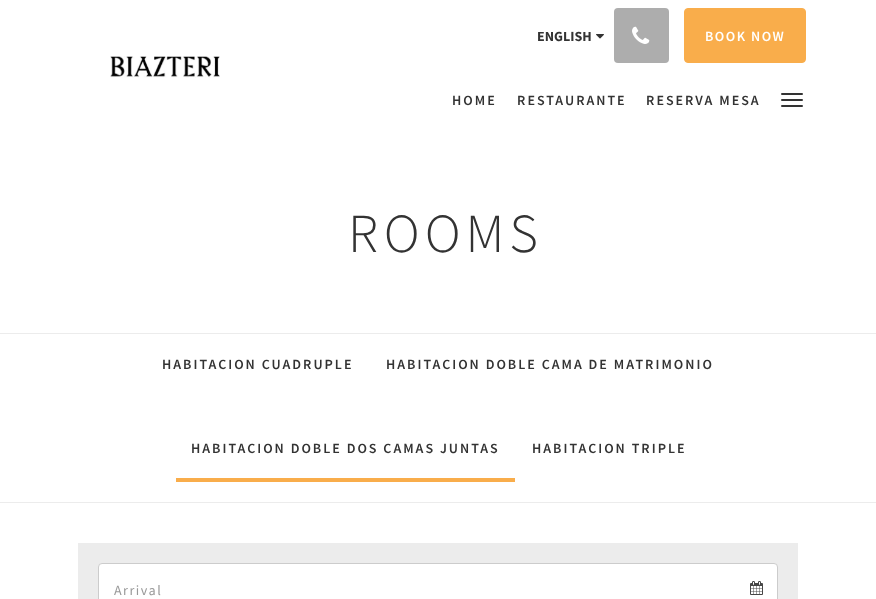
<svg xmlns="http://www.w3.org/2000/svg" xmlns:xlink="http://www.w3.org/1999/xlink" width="876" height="599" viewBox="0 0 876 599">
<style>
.cls-1{font:bold 14px Source Sans Pro;fill:#333333}
.cls-2{font:600 14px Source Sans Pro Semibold;letter-spacing:1.5px;fill:#ffffff}
.cls-3{font:600 14px Source Sans Pro Semibold;letter-spacing:2px;fill:#333333}
.cls-4{font:300 55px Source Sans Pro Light;letter-spacing:5px;fill:#333333}
.cls-5{font:14px Source Sans Pro;letter-spacing:1.5px;fill:#999999}
</style>
<rect width="100%" height="100%" fill="#ffffff"/>
<image xlink:href="image0.png" x="110" y="56" width="110" height="22"/>
<image xlink:href="image1.png" x="596" y="34" width="8" height="5"/>
<rect fill="#adadad" x="614" y="8" width="55" height="55" rx="4"/>
<image xlink:href="image2.png" x="632" y="26" width="18" height="18"/>
<rect fill="#f9ad4b" stroke="#f9ad4b" x="684.5" y="8.5" width="121" height="54" rx="3.5"/>
<rect fill="#333333" x="781" y="93" width="22" height="2" rx="1"/>
<rect fill="#333333" x="781" y="99" width="22" height="2" rx="1"/>
<rect fill="#333333" x="781" y="105" width="22" height="2" rx="1"/>
<rect fill="#ececec" x="0" y="333" width="876" height="1"/>
<rect fill="#ececec" x="0" y="502" width="876" height="1"/>
<rect fill="#f9ad4b" x="176" y="478" width="339" height="4"/>
<rect fill="#ececec" x="78" y="543" width="720" height="56"/>
<rect fill="#ffffff" stroke="#cccccc" x="98.5" y="563.5" width="679" height="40" rx="3.5"/>
<image xlink:href="image3.png" x="750" y="581" width="13" height="14"/>
<text class="cls-1" x="537" y="41">ENGLISH</text>
<text class="cls-2" x="705" y="41">BOOK NOW</text>
<text class="cls-3" x="452" y="105">HOME</text>
<text class="cls-3" x="517" y="105">RESTAURANTE</text>
<text class="cls-3" x="646" y="105">RESERVA MESA</text>
<text class="cls-4" x="348" y="252">ROOMS</text>
<text class="cls-3" x="162" y="369">HABITACION CUADRUPLE</text>
<text class="cls-3" x="386" y="369">HABITACION DOBLE CAMA DE MATRIMONIO</text>
<text class="cls-3" x="191" y="453">HABITACION DOBLE DOS CAMAS JUNTAS</text>
<text class="cls-3" x="532" y="453">HABITACION TRIPLE</text>
<text class="cls-5" x="114" y="595">Arrival</text>
</svg>
